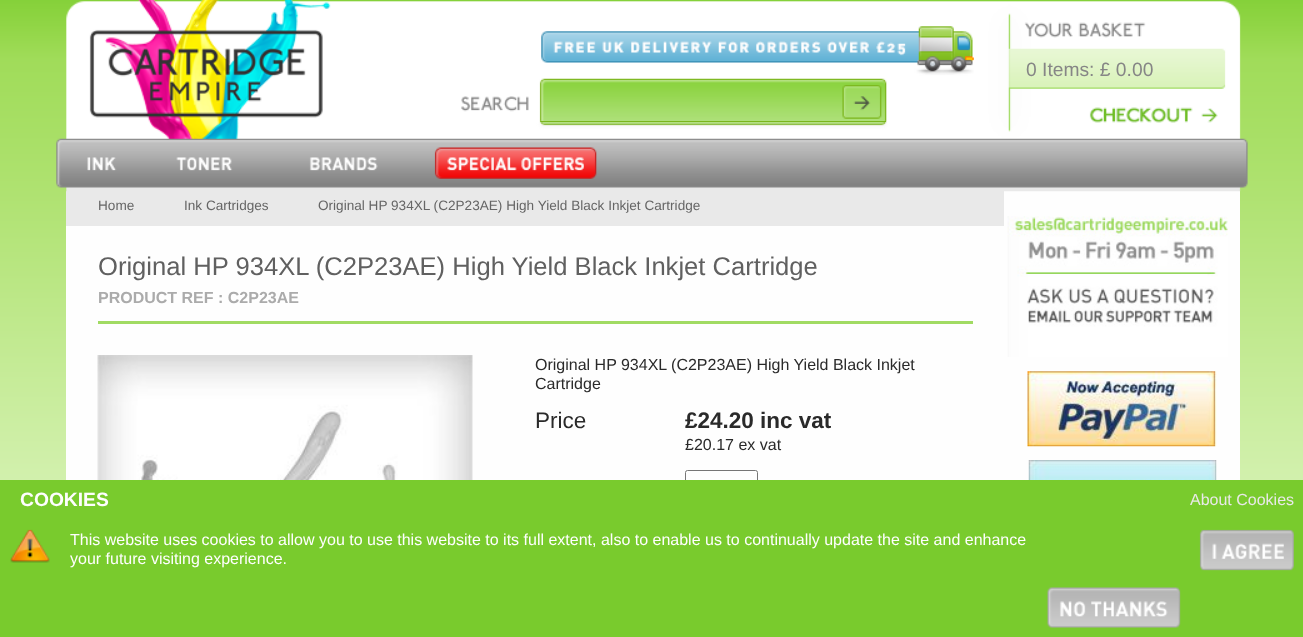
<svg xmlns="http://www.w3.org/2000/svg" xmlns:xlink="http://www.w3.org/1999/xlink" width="1303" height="637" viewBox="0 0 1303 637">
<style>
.cls-1{font:19.25px Liberation Sans;fill:#868686}
.cls-2{font:13.6px Liberation Sans;fill:#666666}
.cls-3{font:25.6px Liberation Sans;fill:#606060}
.cls-4{font:bold 16px Liberation Sans;fill:#ababab}
.cls-5{font:16px Liberation Sans;fill:#2a2a2a}
.cls-6{font:22.5px Liberation Sans;fill:#2a2a2a}
.cls-7{font:bold 22.5px Liberation Sans;fill:#2a2a2a}
.cls-8{font:bold 19.25px Liberation Sans;fill:#fefefe}
.cls-9{font:16px Liberation Sans;fill:#e9e9e9}
.cls-10{font:16px Liberation Sans;fill:#fefefe}
</style>
<rect width="100%" height="100%" fill="#ffffff"/>
<image xlink:href="image0.png" x="0" y="0" width="1303" height="480"/>
<rect fill="#fefefe" x="66" y="191" width="1174" height="289"/>
<rect fill="#e9e9e9" x="66" y="191" width="938" height="35"/>
<image xlink:href="image1.png" x="56" y="0" width="1192" height="192"/>
<rect fill="#d7d7d7" filter="blur(2px)" x="540" y="124" width="346" height="1" rx="1"/>
<rect fill="#7bb61c" x="541" y="121" width="345" height="1"/>
<circle fill="#7bb61c" cx="540.5" cy="121.5" r="0.5"/>
<rect fill="#a1db63" x="98" y="321" width="875" height="3"/>
<image xlink:href="image2.png" x="97" y="355" width="376" height="125"/>
<rect fill="none" stroke="#767676" x="685.5" y="470.5" width="72" height="25" rx="2"/>
<image xlink:href="image3.png" x="1007" y="216" width="221" height="141"/>
<image xlink:href="image4.png" x="1027" y="371" width="190" height="76"/>
<image xlink:href="image5.png" x="1028" y="460" width="189" height="20"/>
<rect fill="#79cb2d" x="0" y="480" width="1303" height="157"/>
<image xlink:href="image6.png" x="10" y="529" width="40" height="34"/>
<image xlink:href="image7.png" x="1199" y="529" width="95" height="42"/>
<image xlink:href="image8.png" x="1047" y="587" width="134" height="41"/>
<text class="cls-1" x="1026" y="76">0 Items: £ 0.00</text>
<text class="cls-2" x="98" y="210">Home</text>
<text class="cls-2" x="184" y="210">Ink Cartridges</text>
<text class="cls-2" x="318" y="210">Original HP 934XL (C2P23AE) High Yield Black Inkjet Cartridge</text>
<text class="cls-3" x="98" y="275">Original HP 934XL (C2P23AE) High Yield Black Inkjet Cartridge</text>
<text class="cls-4" x="98" y="303">PRODUCT REF : C2P23AE</text>
<text class="cls-5"><tspan x="535" y="370">Original HP 934XL (C2P23AE) High Yield Black Inkjet</tspan><tspan x="535" y="389">Cartridge</tspan></text>
<text class="cls-6" x="535" y="428">Price</text>
<text class="cls-7" x="685" y="428">£24.20 inc vat</text>
<text class="cls-5" x="685" y="450">£20.17 ex vat</text>
<text class="cls-8" x="20" y="506">COOKIES</text>
<text class="cls-9" x="1190" y="505">About Cookies</text>
<text class="cls-10"><tspan x="70" y="545">This website uses cookies to allow you to use this website to its full extent, also to enable us to continually update the site and enhance</tspan><tspan x="70" y="564">your future visiting experience.</tspan></text>
</svg>
